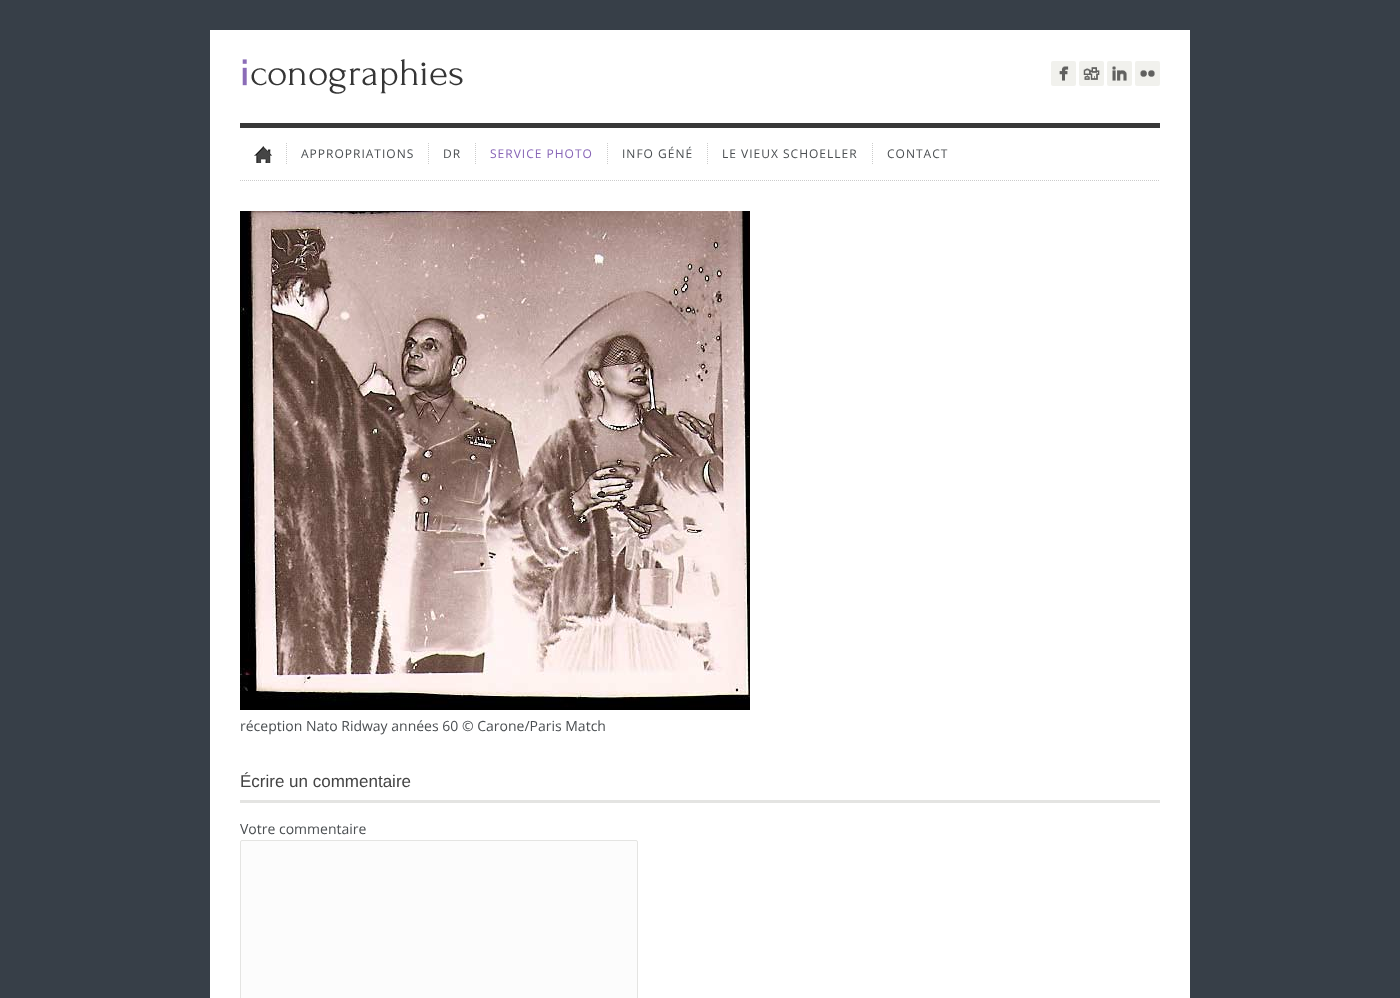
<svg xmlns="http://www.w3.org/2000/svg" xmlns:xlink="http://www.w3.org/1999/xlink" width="1400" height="998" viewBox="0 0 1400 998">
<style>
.cls-1{font:12px Open Sans;letter-spacing:1px;fill:#4a4e51}
.cls-2{font:12px Open Sans;letter-spacing:1px;fill:#8764b6}
.cls-3{font:14px Open Sans;fill:#4a4e51}
.cls-4{font:17px Liberation Sans;fill:#444444}
</style>
<rect width="100%" height="100%" fill="#373f48"/>
<rect fill="#ffffff" x="210" y="30" width="980" height="968"/>
<image xlink:href="image0.png" x="242" y="59" width="221" height="35"/>
<rect fill="#f1f1ed" x="1051" y="61" width="25" height="25" rx="2"/>
<image xlink:href="image1.png" x="1059" y="66" width="10" height="15"/>
<rect fill="#f1f1ed" x="1079" y="61" width="25" height="25" rx="2"/>
<image xlink:href="image2.png" x="1083" y="67" width="17" height="13"/>
<rect fill="#f1f1ed" x="1107" y="61" width="25" height="25" rx="2"/>
<image xlink:href="image3.png" x="1112" y="66" width="15" height="15"/>
<rect fill="#f1f1ed" x="1135" y="61" width="25" height="25" rx="2"/>
<image xlink:href="image4.png" x="1140" y="70" width="15" height="7"/>
<rect fill="#383838" x="240" y="123" width="920" height="5"/>
<path fill="none" stroke="#cccccc" stroke-dasharray="1 1" d="M240 180.5H1160"/>
<path fill="none" stroke="#cccccc" stroke-dasharray="1 1" d="M286.5 143V165"/>
<image xlink:href="image5.png" x="254" y="146" width="18" height="17"/>
<path fill="none" stroke="#cccccc" stroke-dasharray="1 1" d="M428.5 143V165"/>
<path fill="none" stroke="#cccccc" stroke-dasharray="1 1" d="M475.5 143V165"/>
<path fill="none" stroke="#cccccc" stroke-dasharray="1 1" d="M607.5 143V165"/>
<path fill="none" stroke="#cccccc" stroke-dasharray="1 1" d="M707.5 143V165"/>
<path fill="none" stroke="#cccccc" stroke-dasharray="1 1" d="M872.5 143V165"/>
<image xlink:href="image6.png" x="240" y="211" width="510" height="499"/>
<rect fill="#e4e4e2" x="240" y="800" width="920" height="3"/>
<rect fill="#fcfcfc" stroke="#e4e4e2" x="240.5" y="840.5" width="397" height="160" rx="1.5"/>
<text class="cls-1" x="301" y="158">APPROPRIATIONS</text>
<text class="cls-1" x="443" y="158">DR</text>
<text class="cls-2" x="490" y="158">SERVICE PHOTO</text>
<text class="cls-1" x="622" y="158">INFO GÉNÉ</text>
<text class="cls-1" x="722" y="158">LE VIEUX SCHOELLER</text>
<text class="cls-1" x="887" y="158">CONTACT</text>
<text class="cls-3" x="240" y="731">réception Nato Ridway années 60 © Carone/Paris Match</text>
<text class="cls-4" x="240" y="787">Écrire un commentaire</text>
<text class="cls-3" x="240" y="834">Votre commentaire</text>
</svg>
